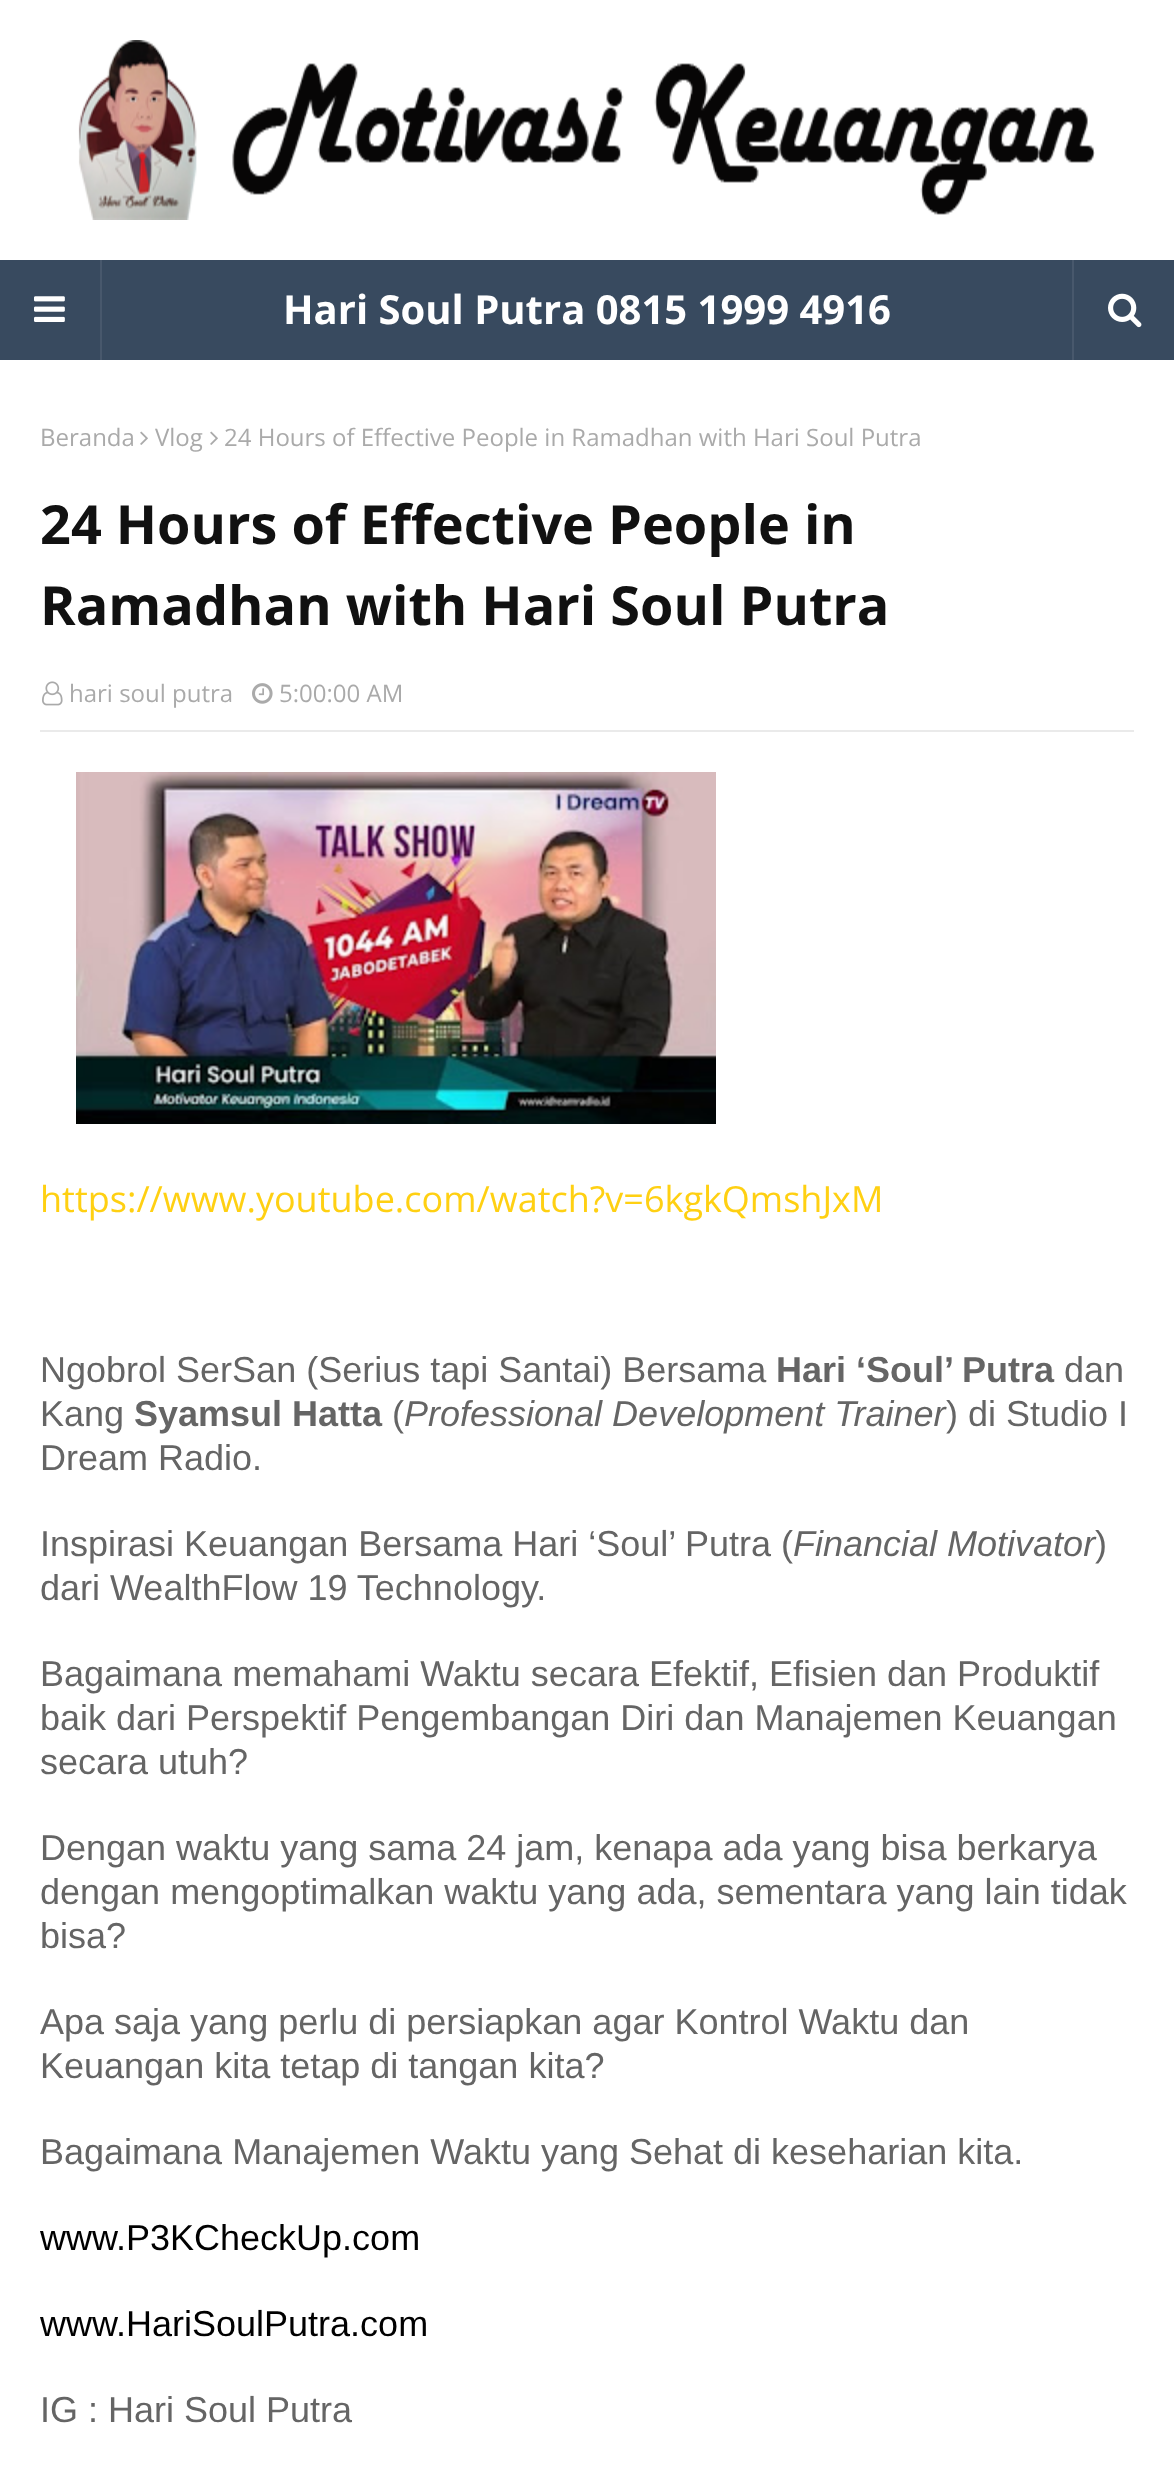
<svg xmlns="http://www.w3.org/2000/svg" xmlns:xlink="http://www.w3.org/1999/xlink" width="1174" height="2483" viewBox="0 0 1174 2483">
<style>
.cls-1{font:bold 40px Open Sans;fill:#ffffff}
.cls-2{font:24px Open Sans;fill:#aaaaaa}
.cls-3{font:bold 54px Open Sans;fill:#111111}
.cls-4{font:36px Open Sans;fill:#ffd012}
.cls-5{font:36px Liberation Sans;fill:#656565}
.cls-6{font:bold 36px Liberation Sans;fill:#656565}
.cls-7{font:italic 36px Liberation Sans;fill:#656565}
.cls-8{font:36px Liberation Sans;fill:#000000}
</style>
<rect width="100%" height="100%" fill="#ffffff"/>
<image xlink:href="image0.png" x="78" y="40" width="1017" height="180"/>
<rect fill="#384a5f" x="0" y="260" width="1174" height="100"/>
<rect fill="#48586c" x="100" y="260" width="2" height="100"/>
<image xlink:href="image1.png" x="34" y="296" width="31" height="26"/>
<rect fill="#48586c" x="1072" y="260" width="2" height="100"/>
<image xlink:href="image2.png" x="1108" y="293" width="34" height="35"/>
<image xlink:href="image3.png" x="140" y="431" width="8" height="14"/>
<image xlink:href="image3.png" x="210" y="431" width="8" height="14"/>
<rect fill="#eaeaea" x="40" y="730" width="1094" height="2"/>
<image xlink:href="image4.png" x="42" y="681" width="21" height="25"/>
<image xlink:href="image5.png" x="252" y="683" width="21" height="21"/>
<image xlink:href="image6.png" x="76" y="772" width="640" height="352"/>
<text class="cls-1" x="283" y="324">Hari Soul Putra 0815 1999 4916</text>
<text class="cls-2" x="40" y="446">Beranda</text>
<text class="cls-2" x="155" y="446">Vlog</text>
<text class="cls-2" x="224" y="446">24 Hours of Effective People in Ramadhan with Hari Soul Putra</text>
<text class="cls-3"><tspan x="40" y="544">24 Hours of Effective People in</tspan><tspan x="40" y="625">Ramadhan with Hari Soul Putra</tspan></text>
<text class="cls-2" x="69" y="702">hari soul putra</text>
<text class="cls-2" x="279" y="702">5:00:00 AM</text>
<text class="cls-4" x="40" y="1212">https://www.youtube.com/watch?v=6kgkQmshJxM</text>
<text class="cls-5" x="40" y="1382">Ngobrol SerSan (Serius tapi Santai) Bersama</text>
<text class="cls-6" x="776" y="1382">Hari ‘Soul’ Putra</text>
<text class="cls-5" x="1064" y="1382">dan</text>
<text class="cls-5" x="40" y="1426">Kang</text>
<text class="cls-6" x="134" y="1426">Syamsul Hatta</text>
<text class="cls-5" x="392" y="1426">(</text>
<text class="cls-7" x="404" y="1426">Professional Development Trainer</text>
<text class="cls-5" x="946" y="1426">) di Studio I</text>
<text class="cls-5" x="40" y="1470">Dream Radio.</text>
<text class="cls-5" x="40" y="1556">Inspirasi Keuangan Bersama Hari ‘Soul’ Putra (</text>
<text class="cls-7" x="793" y="1556">Financial Motivator</text>
<text class="cls-5" x="1095" y="1556">)</text>
<text class="cls-5" x="40" y="1600">dari WealthFlow 19 Technology.</text>
<text class="cls-5"><tspan x="40" y="1686">Bagaimana memahami Waktu secara Efektif, Efisien dan Produktif</tspan><tspan x="40" y="1730">baik dari Perspektif Pengembangan Diri dan Manajemen Keuangan</tspan><tspan x="40" y="1774">secara utuh?</tspan></text>
<text class="cls-5"><tspan x="40" y="1860">Dengan waktu yang sama 24 jam, kenapa ada yang bisa berkarya</tspan><tspan x="40" y="1904">dengan mengoptimalkan waktu yang ada, sementara yang lain tidak</tspan><tspan x="40" y="1948">bisa?</tspan></text>
<text class="cls-5"><tspan x="40" y="2034">Apa saja yang perlu di persiapkan agar Kontrol Waktu dan</tspan><tspan x="40" y="2078">Keuangan kita tetap di tangan kita?</tspan></text>
<text class="cls-5" x="40" y="2164">Bagaimana Manajemen Waktu yang Sehat di keseharian kita.</text>
<text class="cls-8" x="40" y="2250">www.P3KCheckUp.com</text>
<text class="cls-8" x="40" y="2336">www.HariSoulPutra.com</text>
<text class="cls-5" x="40" y="2422">IG : Hari Soul Putra</text>
</svg>
